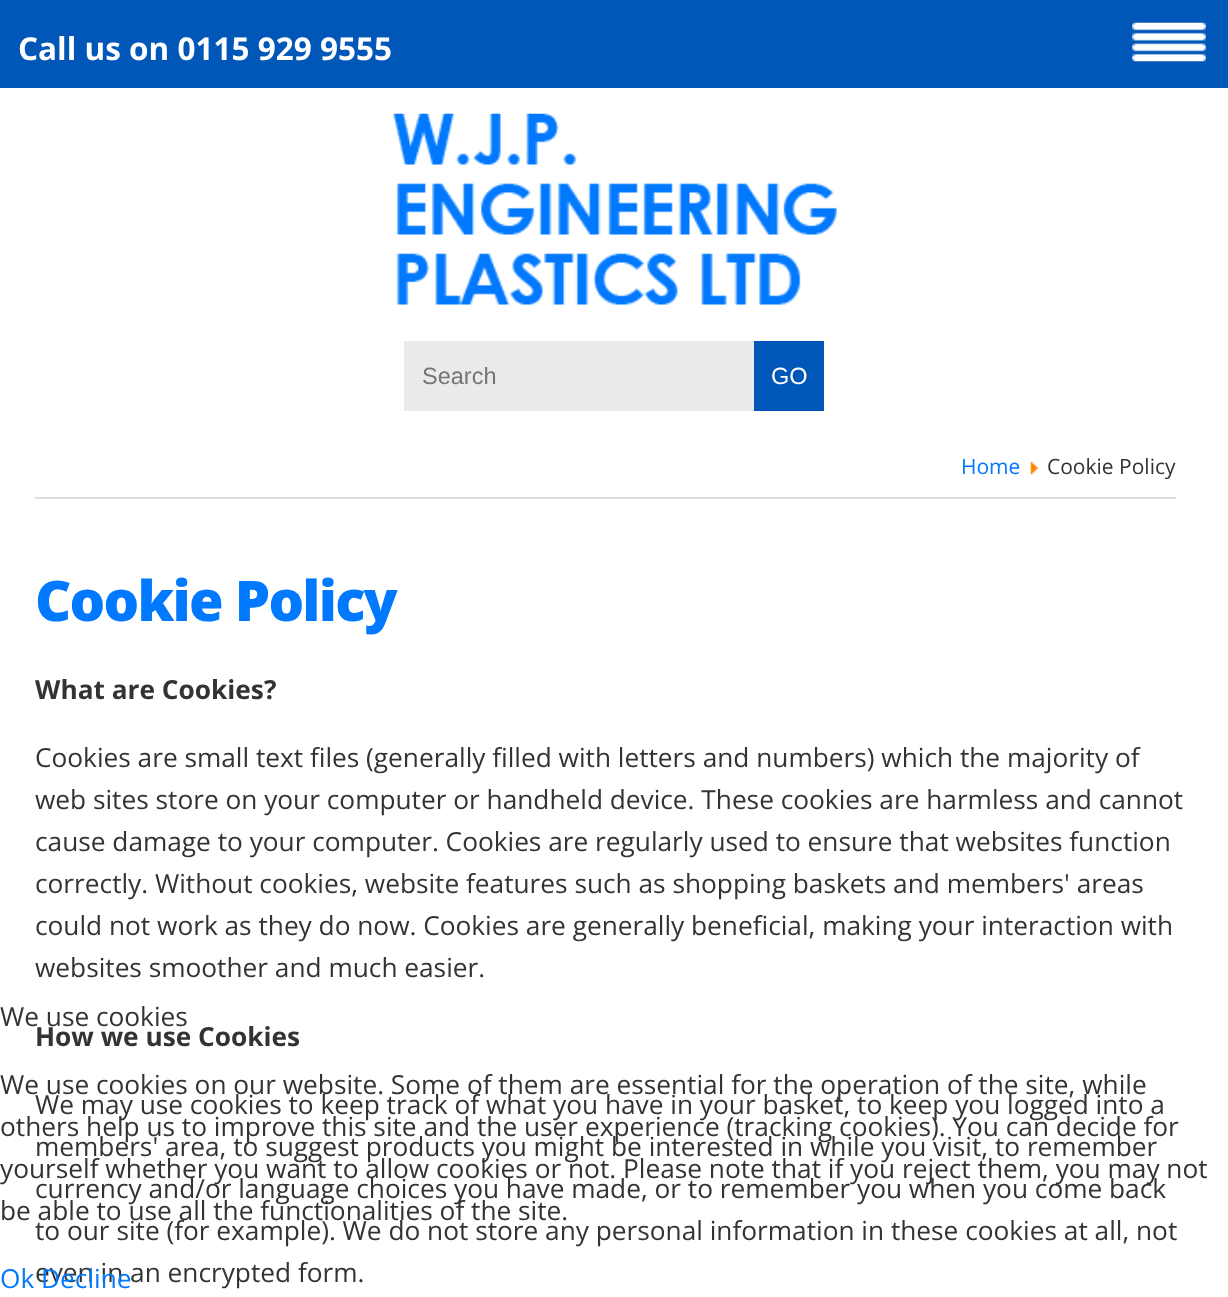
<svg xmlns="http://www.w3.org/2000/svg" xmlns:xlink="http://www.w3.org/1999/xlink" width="1228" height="1297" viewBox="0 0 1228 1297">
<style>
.cls-1{font:bold 31.5px Open Sans;fill:#ffffff}
.cls-2{font:23.5px Liberation Sans;fill:#757575}
.cls-3{font:23.5px Liberation Sans;fill:#ffffff}
.cls-4{font:21px Open Sans;fill:#0079ff}
.cls-5{font:21px Open Sans;fill:#333333}
.cls-6{font:800 56px Open Sans;letter-spacing:-1.75px;fill:#0079ff}
.cls-7{font:bold 26.25px Open Sans;fill:#333333}
.cls-8{font:26.25px Open Sans;fill:#333333}
.cls-9{font:26.25px Open Sans;fill:#0079ff}
</style>
<rect width="100%" height="100%" fill="#ffffff"/>
<rect fill="#0057b8" x="0" y="0" width="1228" height="88"/>
<image xlink:href="image0.png" x="1132" y="22" width="74" height="40"/>
<image xlink:href="image1.png" x="393" y="113" width="444" height="192"/>
<rect fill="#eaeaea" x="404" y="341" width="350" height="70"/>
<rect fill="#0057b8" x="754" y="341" width="70" height="70"/>
<rect fill="#dcdcdc" x="35" y="497" width="1141" height="2"/>
<image xlink:href="image2.png" x="1030" y="461" width="9" height="14"/>
<text class="cls-1" x="18" y="60">Call us on 0115 929 9555</text>
<text class="cls-2" x="422" y="384">Search</text>
<text class="cls-3" x="771" y="384">GO</text>
<text class="cls-4" x="961" y="474">Home</text>
<text class="cls-5" x="1047" y="474">Cookie Policy</text>
<text class="cls-6" x="35" y="621">Cookie Policy</text>
<text class="cls-7" x="35" y="699">What are Cookies?</text>
<text class="cls-8"><tspan x="35" y="767">Cookies are small text files (generally filled with letters and numbers) which the majority of</tspan><tspan x="35" y="809">web sites store on your computer or handheld device. These cookies are harmless and cannot</tspan><tspan x="35" y="851">cause damage to your computer. Cookies are regularly used to ensure that websites function</tspan><tspan x="35" y="893">correctly. Without cookies, website features such as shopping baskets and members' areas</tspan><tspan x="35" y="935">could not work as they do now. Cookies are generally beneficial, making your interaction with</tspan><tspan x="35" y="977">websites smoother and much easier.</tspan></text>
<text class="cls-7" x="35" y="1046">How we use Cookies</text>
<text class="cls-8"><tspan x="35" y="1114">We may use cookies to keep track of what you have in your basket, to keep you logged into a</tspan><tspan x="35" y="1156">members' area, to suggest products you might be interested in while you visit, to remember</tspan><tspan x="35" y="1198">currency and/or language choices you have made, or to remember you when you come back</tspan><tspan x="35" y="1240">to our site (for example). We do not store any personal information in these cookies at all, not</tspan><tspan x="35" y="1282">even in an encrypted form.</tspan></text>
<text class="cls-8" x="0" y="1026">We use cookies</text>
<text class="cls-8"><tspan x="0" y="1094">We use cookies on our website. Some of them are essential for the operation of the site, while</tspan><tspan x="0" y="1136">others help us to improve this site and the user experience (tracking cookies). You can decide for</tspan><tspan x="0" y="1178">yourself whether you want to allow cookies or not. Please note that if you reject them, you may not</tspan><tspan x="0" y="1220">be able to use all the functionalities of the site.</tspan></text>
<text class="cls-9" x="0" y="1288">Ok Decline</text>
</svg>
